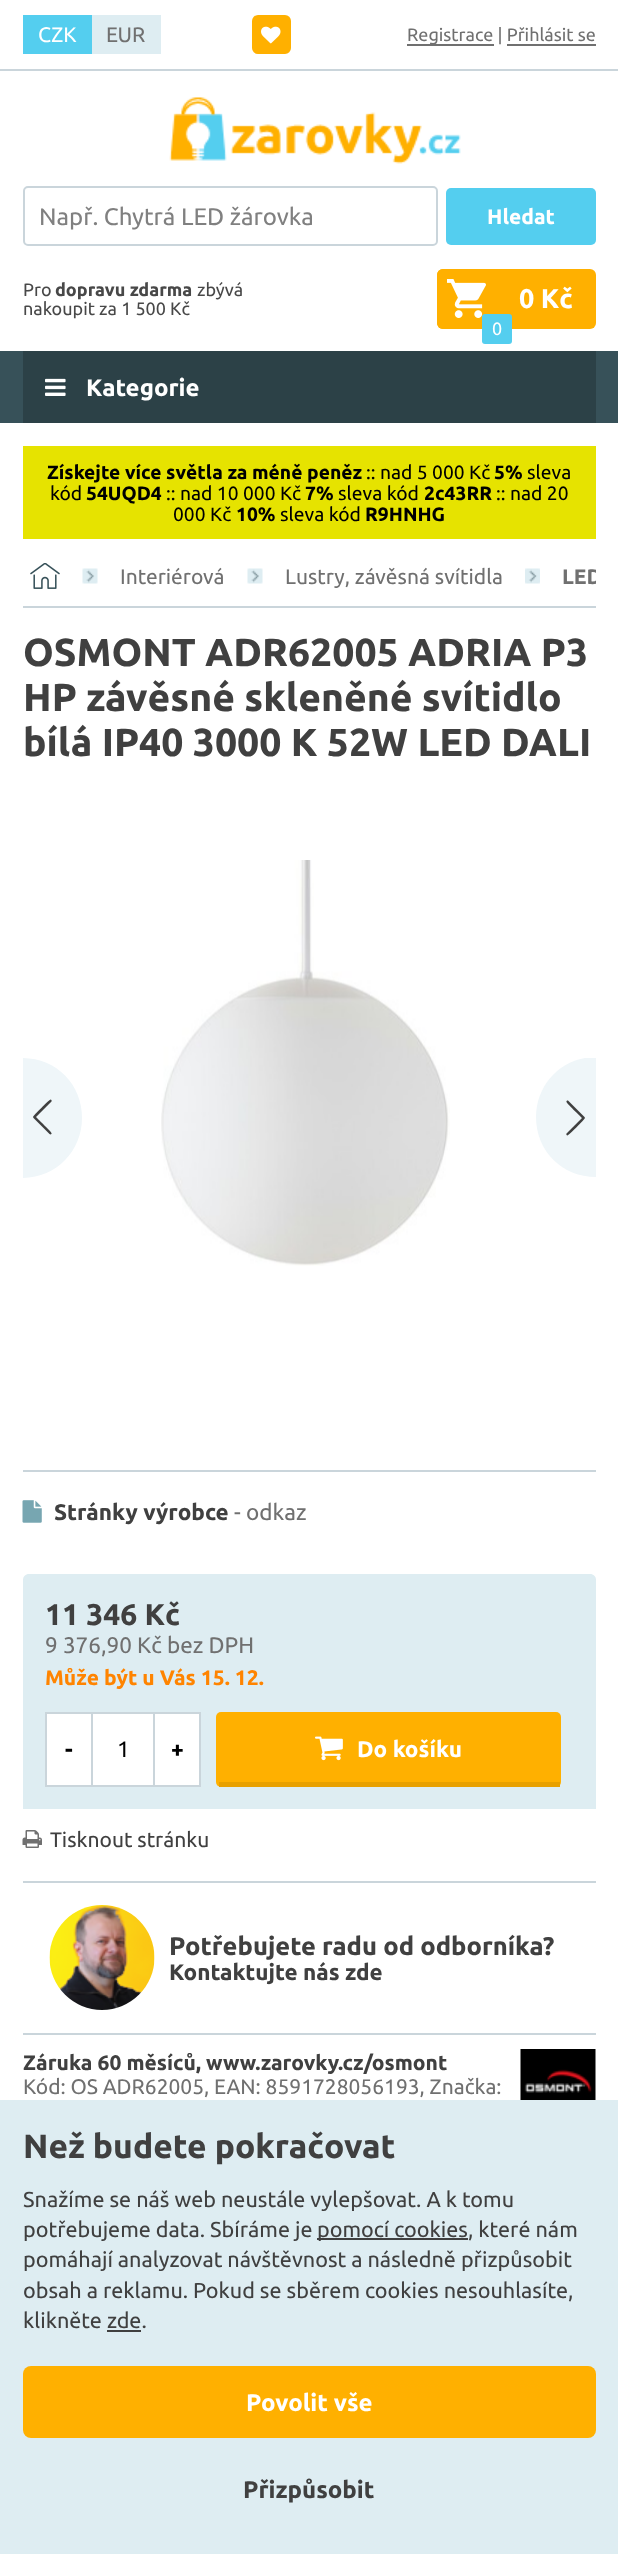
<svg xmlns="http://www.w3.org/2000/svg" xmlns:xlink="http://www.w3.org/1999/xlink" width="618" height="2554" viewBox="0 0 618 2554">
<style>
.cls-1{font:21px Ubuntu;fill:#ffffff}
.cls-2{font:21px Ubuntu;fill:#707070}
.cls-3{font:18px Ubuntu;fill:#707070}
.cls-4{font:24px Ubuntu;fill:#808080}
.cls-5{font:bold 21px Ubuntu;fill:#ffffff}
.cls-6{font:18px Ubuntu;fill:#484848}
.cls-7{font:bold 18px Ubuntu;fill:#484848}
.cls-8{font:bold 27px Ubuntu;fill:#ffffff}
.cls-9{font:18px Ubuntu;fill:#ffffff}
.cls-10{font:bold 24px Ubuntu;fill:#ffffff}
.cls-11{font:bold 19.25px Ubuntu;fill:#000000}
.cls-12{font:19.25px Ubuntu;fill:#000000}
.cls-13{font:bold 21px Ubuntu;fill:#707070}
.cls-14{font:bold 39px Ubuntu;fill:#404040}
.cls-15{font:bold 22.5px Ubuntu;fill:#404040}
.cls-16{font:22.5px Ubuntu;fill:#707070}
.cls-17{font:bold 30px Ubuntu;fill:#404040}
.cls-18{font:bold 21px Ubuntu;fill:#ff8400}
.cls-19{font:bold 22.5px Ubuntu;fill:#000000}
.cls-20{font:22.5px Ubuntu;fill:#000000}
.cls-21{font:bold 22.5px Ubuntu;fill:#ffffff}
.cls-22{font:21px Ubuntu;fill:#404040}
.cls-23{font:bold 25.5px Ubuntu;fill:#404040}
.cls-24{font:bold 21px Ubuntu;fill:#404040}
.cls-25{font:bold 33.6px Ubuntu;fill:#404040}
.cls-26{font:21.6px Ubuntu;fill:#404040}
.cls-27{font:bold 24px Ubuntu;fill:#404040}
</style>
<defs>
<clipPath id="clip1"><rect x="23" y="1058" width="60" height="120"/></clipPath>
<clipPath id="clip2"><rect x="536" y="1058" width="60" height="120"/></clipPath>
<clipPath id="clip3"><rect x="23" y="546" width="573" height="60"/></clipPath>
</defs>
<rect width="100%" height="100%" fill="#ffffff"/>
<rect fill="#cad5db" x="0" y="69" width="618" height="2"/>
<rect fill="#54ceef" x="23" y="15" width="69" height="39"/>
<rect fill="#deedf2" x="92" y="15" width="69" height="39"/>
<rect fill="#ffb000" x="252" y="15" width="39" height="39" rx="6"/>
<image xlink:href="image0.png" x="261" y="26" width="20" height="18"/>
<rect fill="#707070" x="407" y="44" width="87" height="2"/>
<rect fill="#707070" x="507" y="44" width="89" height="2"/>
<image xlink:href="image1.png" x="169" y="97" width="292" height="67"/>
<rect fill="none" stroke="#cad5db" stroke-width="2" x="24" y="187" width="413" height="58" rx="4"/>
<rect fill="#54ceef" x="446" y="188" width="150" height="57" rx="5"/>
<rect fill="#ffb000" x="437" y="269" width="159" height="60" rx="6"/>
<rect fill="#ffb000" x="437" y="269" width="60" height="60" rx="6"/>
<image xlink:href="image2.png" x="447" y="279" width="39" height="39"/>
<rect fill="#54ceef" x="482" y="314" width="30" height="30" rx="3"/>
<rect fill="#375159" x="0" y="351" width="618" height="72"/>
<rect fill="#2c4147" x="23" y="351" width="573" height="72"/>
<image xlink:href="image3.png" x="45" y="378" width="21" height="18"/>
<rect fill="#e6e300" x="23" y="446" width="573" height="93"/>
<rect fill="#cad5db" x="23" y="606" width="573" height="2"/>
<image xlink:href="image4.png" x="30" y="563" width="30" height="26"/>
<image xlink:href="image5.png" x="82" y="568" width="16" height="16"/>
<image xlink:href="image5.png" x="247" y="568" width="16" height="16"/>
<image xlink:href="image6.png" x="525" y="568" width="15" height="16"/>
<g clip-path="url(#clip1)">
<path fill="#eff6f9" d="M22 1178V1058C56 1058 82 1084 82 1118C82 1151 56 1178 22 1178Z"/>
</g>
<path fill="#404040" d="M49.5 1134C50.5 1135 52 1134 51.5 1133C51.5 1132 38 1119 36 1117L51.5 1101.5C52 1101 51.5 1099.5 50.5 1099.5C49.5 1099.5 33 1116 33 1117L33.5 1118Z"/>
<image xlink:href="image7.png" x="161" y="860" width="289" height="406"/>
<g clip-path="url(#clip2)">
<path fill="#eff6f9" d="M596 1057V1177C562 1177 536 1151 536 1117C536 1084 562 1057 596 1057Z"/>
</g>
<path fill="#404040" d="M568.5 1101C567.5 1100 566 1101 566.5 1102C566.5 1103 580 1116 582 1118L566.5 1133.5C566 1134 566.5 1135.5 567.5 1135.5C568.5 1135.5 585 1119 585 1118L584.5 1117Z"/>
<rect fill="#cad5db" x="23" y="1470" width="573" height="2"/>
<image xlink:href="image8.png" x="22" y="1500" width="20" height="23"/>
<path fill="#deedf2" d="M29 1574H590C593.5 1574 596 1576.5 596 1580V1809H23V1580C23 1576.5 25.5 1574 29 1574Z"/>
<rect fill="#ffffff" stroke="#cad5db" stroke-width="2" x="46" y="1713" width="46" height="73"/>
<rect fill="#ffffff" x="93" y="1714" width="60" height="71"/>
<rect fill="#cad5db" x="93" y="1712" width="60" height="2"/>
<rect fill="#cad5db" x="93" y="1785" width="60" height="2"/>
<rect fill="#ffffff" stroke="#cad5db" stroke-width="2" x="154" y="1713" width="46" height="73"/>
<rect fill="#ffb000" x="216" y="1712" width="345" height="75" rx="5"/>
<rect fill="#e8a000" x="219" y="1782" width="341" height="5"/>
<image xlink:href="image9.png" x="315" y="1736" width="28" height="25"/>
<image xlink:href="image10.png" x="22" y="1830" width="20" height="18"/>
<rect fill="#cad5db" x="23" y="1881" width="573" height="2"/>
<rect fill="#cad5db" x="23" y="2033" width="573" height="2"/>
<image xlink:href="image11.png" x="49" y="1905" width="106" height="105"/>
<image xlink:href="image12.png" x="520" y="2049" width="76" height="51"/>
<rect fill="#deedf2" x="0" y="2100" width="618" height="454"/>
<rect fill="#404040" x="317" y="2238" width="151" height="2"/>
<rect fill="#404040" x="107" y="2330" width="34" height="2"/>
<rect fill="#ffb000" x="23" y="2366" width="573" height="72" rx="8"/>
<text class="cls-1" x="38" y="42">CZK</text>
<text class="cls-2" x="106" y="42">EUR</text>
<text class="cls-3" x="407" y="41">Registrace | Přihlásit se</text>
<text class="cls-4" x="39" y="225">Např. Chytrá LED žárovka</text>
<text class="cls-5" x="487" y="224">Hledat</text>
<text class="cls-6" x="23" y="296">Pro</text>
<text class="cls-7" x="55" y="296">dopravu zdarma</text>
<text class="cls-6" x="197" y="296">zbývá</text>
<text class="cls-6" x="23" y="315">nakoupit za 1 500 Kč</text>
<text class="cls-8" x="519" y="308">0 Kč</text>
<text class="cls-9" x="492" y="335">0</text>
<text class="cls-10" x="86" y="396">Kategorie</text>
<text class="cls-11" x="47" y="479">Získejte více světla za méně peněz</text>
<text class="cls-12" x="366" y="479">:: nad 5 000 Kč</text>
<text class="cls-11" x="494" y="479">5%</text>
<text class="cls-12" x="527" y="479">sleva</text>
<text class="cls-12" x="50" y="500">kód</text>
<text class="cls-11" x="86" y="500">54UQD4</text>
<text class="cls-12" x="166" y="500">:: nad 10 000 Kč</text>
<text class="cls-11" x="305" y="500">7%</text>
<text class="cls-12" x="338" y="500">sleva kód</text>
<text class="cls-11" x="424" y="500">2c43RR</text>
<text class="cls-12" x="496" y="500">:: nad 20</text>
<text class="cls-12" x="173" y="521">000 Kč</text>
<text class="cls-11" x="236" y="521">10%</text>
<text class="cls-12" x="280" y="521">sleva kód</text>
<text class="cls-11" x="365" y="521">R9HNHG</text>
<text class="cls-2" x="120" y="584">Interiérová</text>
<text class="cls-2" x="285" y="584">Lustry, závěsná svítidla</text>
<g clip-path="url(#clip3)">
<text class="cls-13" x="562" y="584">LED</text>
</g>
<text class="cls-14"><tspan x="23" y="666">OSMONT ADR62005 ADRIA P3</tspan><tspan x="23" y="711">HP závěsné skleněné svítidlo</tspan><tspan x="23" y="756">bílá IP40 3000 K 52W LED DALI</tspan></text>
<text class="cls-15" x="54" y="1520">Stránky výrobce</text>
<text class="cls-16" x="234" y="1520">- odkaz</text>
<text class="cls-17" x="45" y="1625">11 346 Kč</text>
<text class="cls-16" x="45" y="1653">9 376,90 Kč bez DPH</text>
<text class="cls-18" x="45" y="1685">Může být u Vás 15. 12.</text>
<text class="cls-19" x="65" y="1757">-</text>
<text class="cls-20" x="117" y="1757">1</text>
<text class="cls-19" x="171" y="1757">+</text>
<text class="cls-21" x="357" y="1757">Do košíku</text>
<text class="cls-22" x="50" y="1847">Tisknout stránku</text>
<text class="cls-23" x="169" y="1955">Potřebujete radu od odborníka?</text>
<text class="cls-15" x="169" y="1980">Kontaktujte nás zde</text>
<text class="cls-24" x="23" y="2070">Záruka 60 měsíců, www.zarovky.cz/osmont</text>
<text class="cls-2" x="23" y="2094">Kód: OS ADR62005, EAN: 8591728056193, Značka:</text>
<text class="cls-25" x="23" y="2158">Než budete pokračovat</text>
<text class="cls-26"><tspan x="23" y="2207">Snažíme se náš web neustále vylepšovat. A k tomu</tspan><tspan x="23" y="2237">potřebujeme data. Sbíráme je</tspan></text>
<text class="cls-26" x="317" y="2237">pomocí cookies, které nám</text>
<text class="cls-26"><tspan x="23" y="2267">pomáhají analyzovat návštěvnost a následně přizpůsobit</tspan><tspan x="23" y="2298">obsah a reklamu. Pokud se sběrem cookies nesouhlasíte,</tspan><tspan x="23" y="2328">klikněte zde.</tspan></text>
<text class="cls-10" x="246" y="2411">Povolit vše</text>
<text class="cls-27" x="243" y="2498">Přizpůsobit</text>
</svg>
